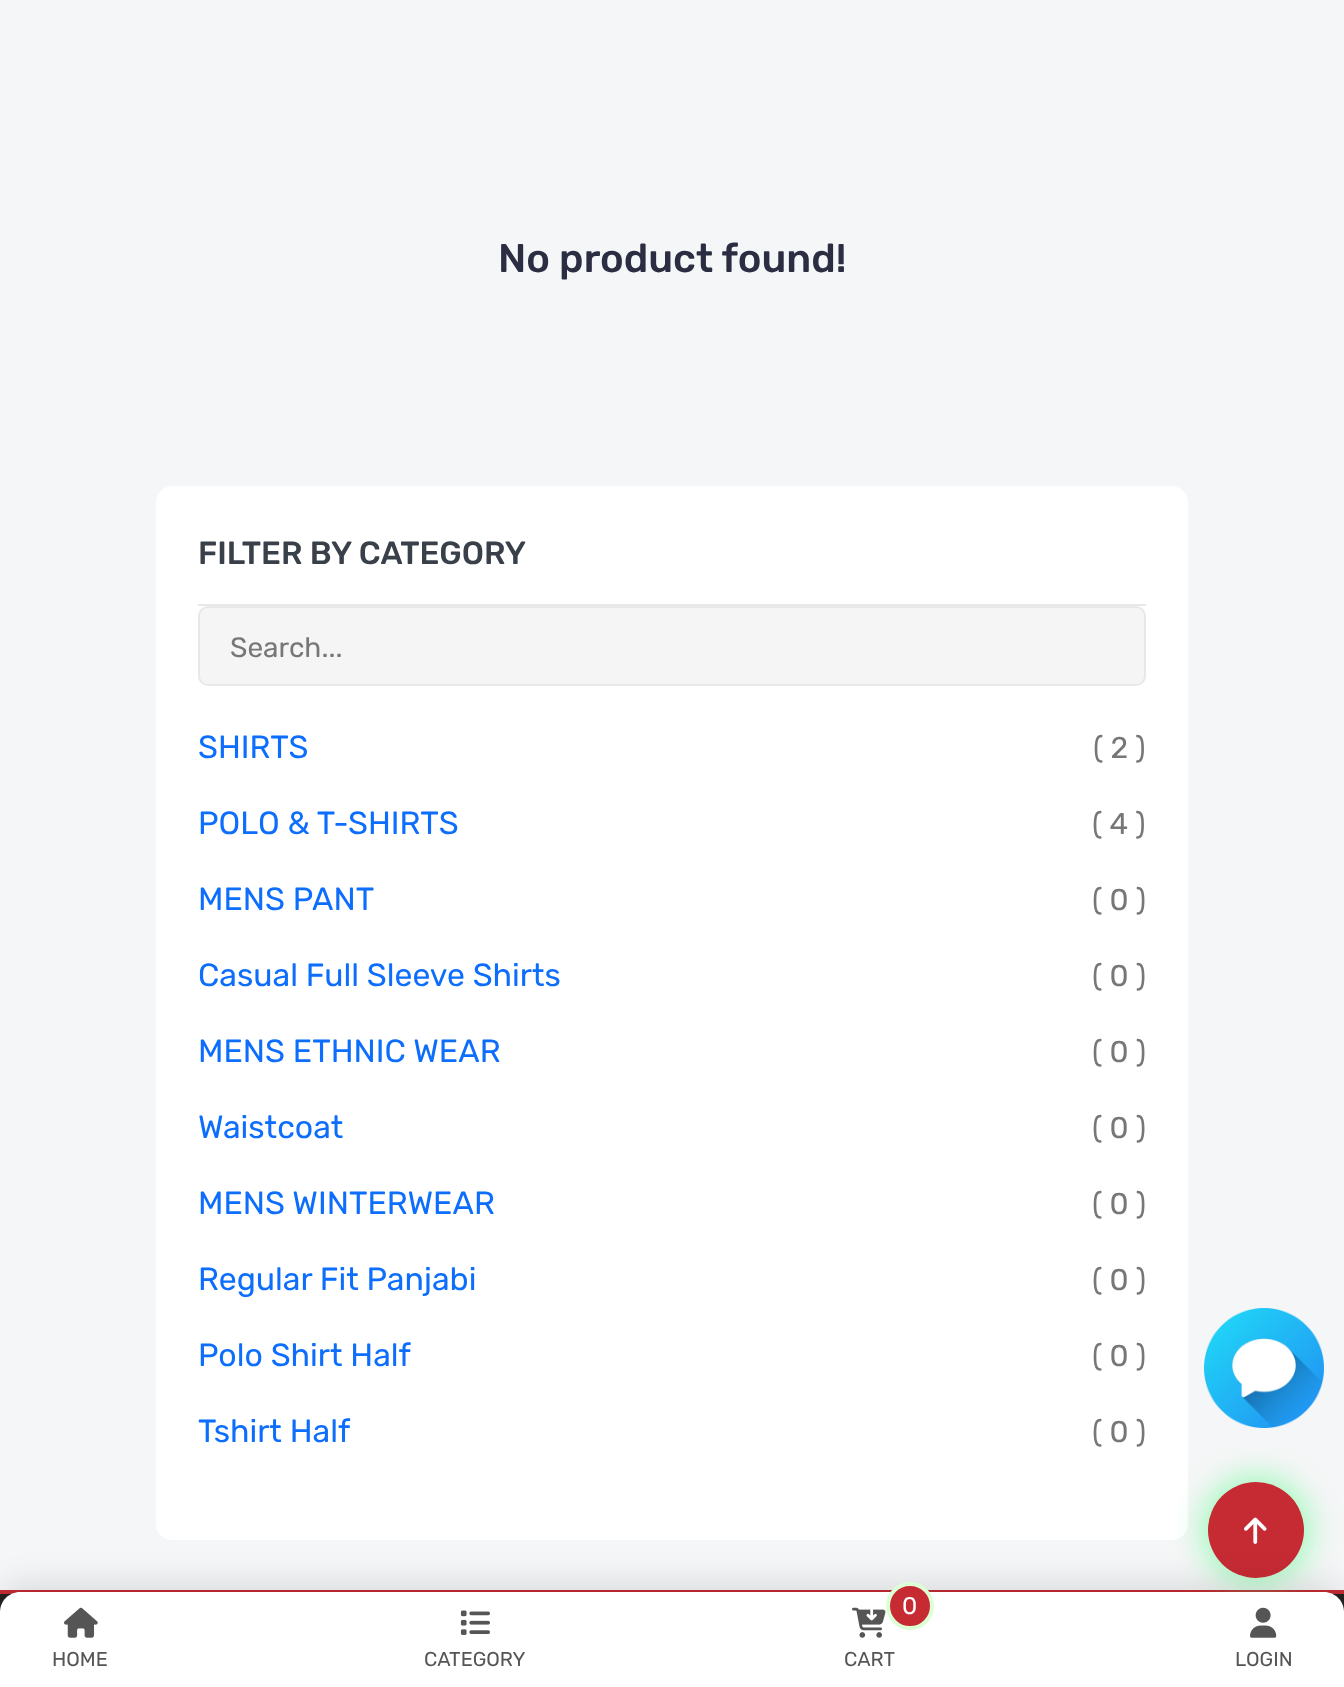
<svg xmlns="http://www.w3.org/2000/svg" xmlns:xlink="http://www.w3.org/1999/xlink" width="1344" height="1687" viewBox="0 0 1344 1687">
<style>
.cls-1{font:500 40px Rubik;fill:#2b2d42}
.cls-2{font:500 32px Rubik;fill:#39404a}
.cls-3{font:28px Rubik;fill:#777777}
.cls-4{font:32px Rubik;fill:#0d6efd}
.cls-5{font:30px Rubik;fill:#777777}
.cls-6{font:20px Rubik;fill:#555555}
.cls-7{font:24px Rubik;fill:#ffffff}
</style>
<rect width="100%" height="100%" fill="#f5f6f7"/>
<rect fill="#ffffff" x="156" y="486" width="1032" height="1054" rx="16"/>
<rect fill="#e8e8e8" x="198" y="604" width="948" height="2"/>
<rect fill="#f5f5f5" stroke="#e8e8e8" stroke-width="2" x="199" y="607" width="946" height="78" rx="9"/>
<image xlink:href="image0.png" x="1204" y="1308" width="120" height="120"/>
<rect fill="#222221" x="0" y="1594" width="1344" height="18"/>
<rect fill="#c62b34" x="0" y="1590" width="1344" height="4"/>
<rect fill="#47fe7e" fill-opacity="0.5" filter="blur(15px)" x="1202" y="1476" width="108" height="108" rx="54"/>
<circle fill="#c62b34" cx="1256" cy="1530" r="48"/>
<image xlink:href="image1.png" x="1244" y="1517" width="23" height="27"/>
<rect fill="#000000" fill-opacity="0.1" filter="blur(15px)" x="0" y="1582" width="1344" height="96" rx="20"/>
<path fill="#ffffff" d="M20 1592H1324C1335 1592 1344 1601 1344 1612V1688H0V1612C0 1601 9 1592 20 1592Z"/>
<image xlink:href="image2.png" x="64" y="1607" width="34" height="31"/>
<image xlink:href="image3.png" x="460" y="1610" width="30" height="25"/>
<image xlink:href="image4.png" x="852" y="1607" width="34" height="31"/>
<circle fill="#c62b34" stroke="#ddffd5" stroke-width="4" cx="910" cy="1606" r="22"/>
<image xlink:href="image5.png" x="1250" y="1607" width="27" height="31"/>
<text class="cls-1" x="498" y="272">No product found!</text>
<text class="cls-2" x="198" y="564">FILTER BY CATEGORY</text>
<text class="cls-3" x="230" y="657">Search...</text>
<text class="cls-4" x="198" y="758">SHIRTS</text>
<text class="cls-5" x="1093" y="758">( 2 )</text>
<text class="cls-4" x="198" y="834">POLO &amp; T-SHIRTS</text>
<text class="cls-5" x="1092" y="834">( 4 )</text>
<text class="cls-4" x="198" y="910">MENS PANT</text>
<text class="cls-5" x="1092" y="910">( 0 )</text>
<text class="cls-4" x="198" y="986">Casual Full Sleeve Shirts</text>
<text class="cls-5" x="1092" y="986">( 0 )</text>
<text class="cls-4" x="198" y="1062">MENS ETHNIC WEAR</text>
<text class="cls-5" x="1092" y="1062">( 0 )</text>
<text class="cls-4" x="198" y="1138">Waistcoat</text>
<text class="cls-5" x="1092" y="1138">( 0 )</text>
<text class="cls-4" x="198" y="1214">MENS WINTERWEAR</text>
<text class="cls-5" x="1092" y="1214">( 0 )</text>
<text class="cls-4" x="198" y="1290">Regular Fit Panjabi</text>
<text class="cls-5" x="1092" y="1290">( 0 )</text>
<text class="cls-4" x="198" y="1366">Polo Shirt Half</text>
<text class="cls-5" x="1092" y="1366">( 0 )</text>
<text class="cls-4" x="198" y="1442">Tshirt Half</text>
<text class="cls-5" x="1092" y="1442">( 0 )</text>
<text class="cls-6" x="52" y="1666">HOME</text>
<text class="cls-6" x="424" y="1666">CATEGORY</text>
<text class="cls-7" x="902" y="1614">0</text>
<text class="cls-6" x="844" y="1666">CART</text>
<text class="cls-6" x="1235" y="1666">LOGIN</text>
</svg>
